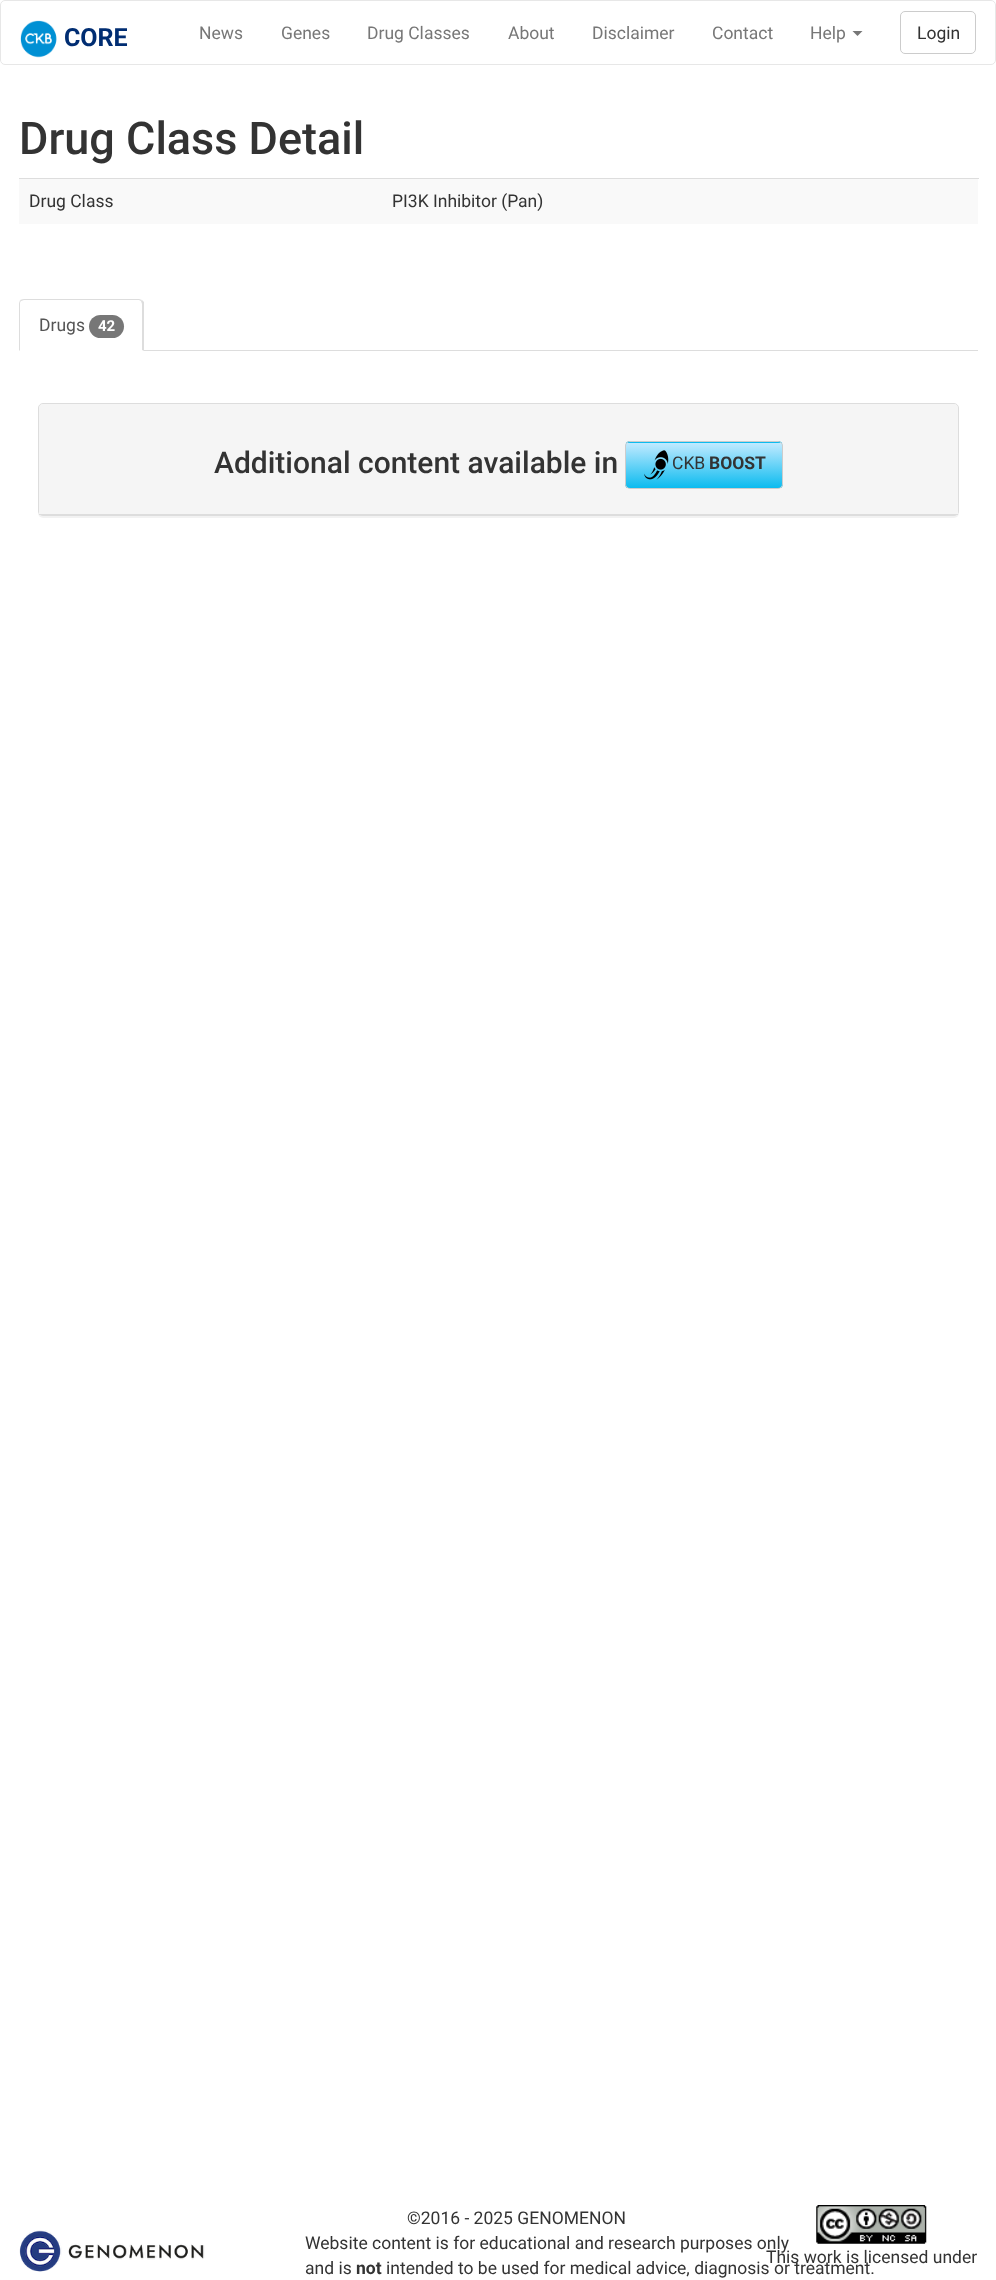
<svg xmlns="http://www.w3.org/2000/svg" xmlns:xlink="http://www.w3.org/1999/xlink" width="996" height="2280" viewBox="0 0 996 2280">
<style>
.cls-1{font:bold 25px Roboto;fill:#002d72}
.cls-2{font:17.5px Roboto;fill:#777777}
.cls-3{font:17.5px Roboto;fill:#333333}
.cls-4{font:500 45px Roboto;fill:#333333}
.cls-5{font:17.5px Roboto;fill:#555555}
.cls-6{font:bold 15px Roboto;fill:#ffffff}
.cls-7{font:500 30px Roboto;fill:#333333}
.cls-8{font:bold 17.5px Roboto;fill:#333333}
</style>
<defs>
<clipPath id="clip1"><rect x="625" y="441" width="158" height="48" rx="5"/></clipPath>
<linearGradient id="g1" gradientUnits="userSpaceOnUse" x1="704" y1="398" x2="704" y2="443"><stop offset="0" stop-color="#c1eaff"/><stop offset="1" stop-color="#0bbbef"/></linearGradient>
<linearGradient id="g2" gradientUnits="userSpaceOnUse" x1="704" y1="443" x2="704" y2="488"><stop offset="0" stop-color="#c1eaff"/><stop offset="1" stop-color="#0bbbef"/></linearGradient>
</defs>
<rect width="100%" height="100%" fill="#ffffff"/>
<rect fill="none" stroke="#e7e7e7" x="0.5" y="0.5" width="995" height="64" rx="4.5"/>
<image xlink:href="image0.png" x="20" y="20" width="37" height="38"/>
<path fill="#777777" d="M852.5 31H862.5L857.5 36Z"/>
<rect fill="none" stroke="#cccccc" x="900.5" y="11.5" width="75" height="42" rx="4.5"/>
<rect fill="#f9f9f9" x="19" y="179" width="959" height="45"/>
<rect fill="#dddddd" x="19" y="178" width="960" height="1"/>
<rect fill="#dddddd" x="144" y="350" width="834" height="1"/>
<path fill="#dddddd" d="M24 299C22 299 21 300 20 300L21 301L24 300H139L141 301L142 300L139 299Z"/>
<path fill="#dddddd" d="M142 300L144 302V351L142 350V304L141 301Z"/>
<path fill="#dddddd" d="M20 300C20 301 19 302 19 304V351L20 350V304C20 303 20 302 21 301Z"/>
<rect fill="#777777" x="89" y="315" width="35" height="23" rx="11.5"/>
<rect fill="#000000" fill-opacity="0.05" filter="blur(0.5px)" x="38" y="404" width="921" height="114" rx="5"/>
<rect fill="none" stroke="#dddddd" x="38.5" y="403.5" width="920" height="112" rx="4.5"/>
<path fill="#f5f5f5" d="M43 404H954C956 404 958 406 958 408V515H39V408C39 406 41 404 43 404Z"/>
<rect fill="#dddddd" x="39" y="514" width="919" height="1"/>
<g clip-path="url(#clip1)">
<rect fill="url(#g1)" x="625" y="441" width="158" height="2"/>
<rect fill="url(#g2)" x="625" y="443" width="158" height="45"/>
</g>
<rect fill="none" stroke="#cccccc" x="625.5" y="441.5" width="157" height="47" rx="4.5"/>
<image xlink:href="image1.png" x="644" y="450" width="25" height="30"/>
<image xlink:href="image2.png" x="19" y="2230" width="186" height="42"/>
<image xlink:href="image3.png" x="816" y="2205" width="111" height="39"/>
<text class="cls-1" x="64" y="46">CORE</text>
<text class="cls-2" x="199" y="39">News</text>
<text class="cls-2" x="281" y="39">Genes</text>
<text class="cls-2" x="367" y="39">Drug Classes</text>
<text class="cls-2" x="508" y="39">About</text>
<text class="cls-2" x="592" y="39">Disclaimer</text>
<text class="cls-2" x="712" y="39">Contact</text>
<text class="cls-2" x="810" y="39">Help</text>
<text class="cls-3" x="917" y="39">Login</text>
<text class="cls-4" x="19" y="154">Drug Class Detail</text>
<text class="cls-3" x="29" y="207">Drug Class</text>
<text class="cls-3" x="392" y="207">PI3K Inhibitor (Pan)</text>
<text class="cls-5" x="39" y="331">Drugs</text>
<text class="cls-6" x="98" y="331">42</text>
<text class="cls-7" x="214" y="473">Additional content available in</text>
<text class="cls-3" x="672" y="469">CKB</text>
<text class="cls-8" x="709" y="469">BOOST</text>
<text class="cls-3" x="407" y="2224">©2016 - 2025 GENOMENON</text>
<text class="cls-3"><tspan x="305" y="2249">Website content is for educational and research purposes only</tspan><tspan x="305" y="2274">and is</tspan></text>
<text class="cls-8" x="356" y="2274">not</text>
<text class="cls-3" x="386" y="2274">intended to be used for medical advice, diagnosis or treatment.</text>
<text class="cls-3" x="766" y="2263">This work is licensed under</text>
</svg>
